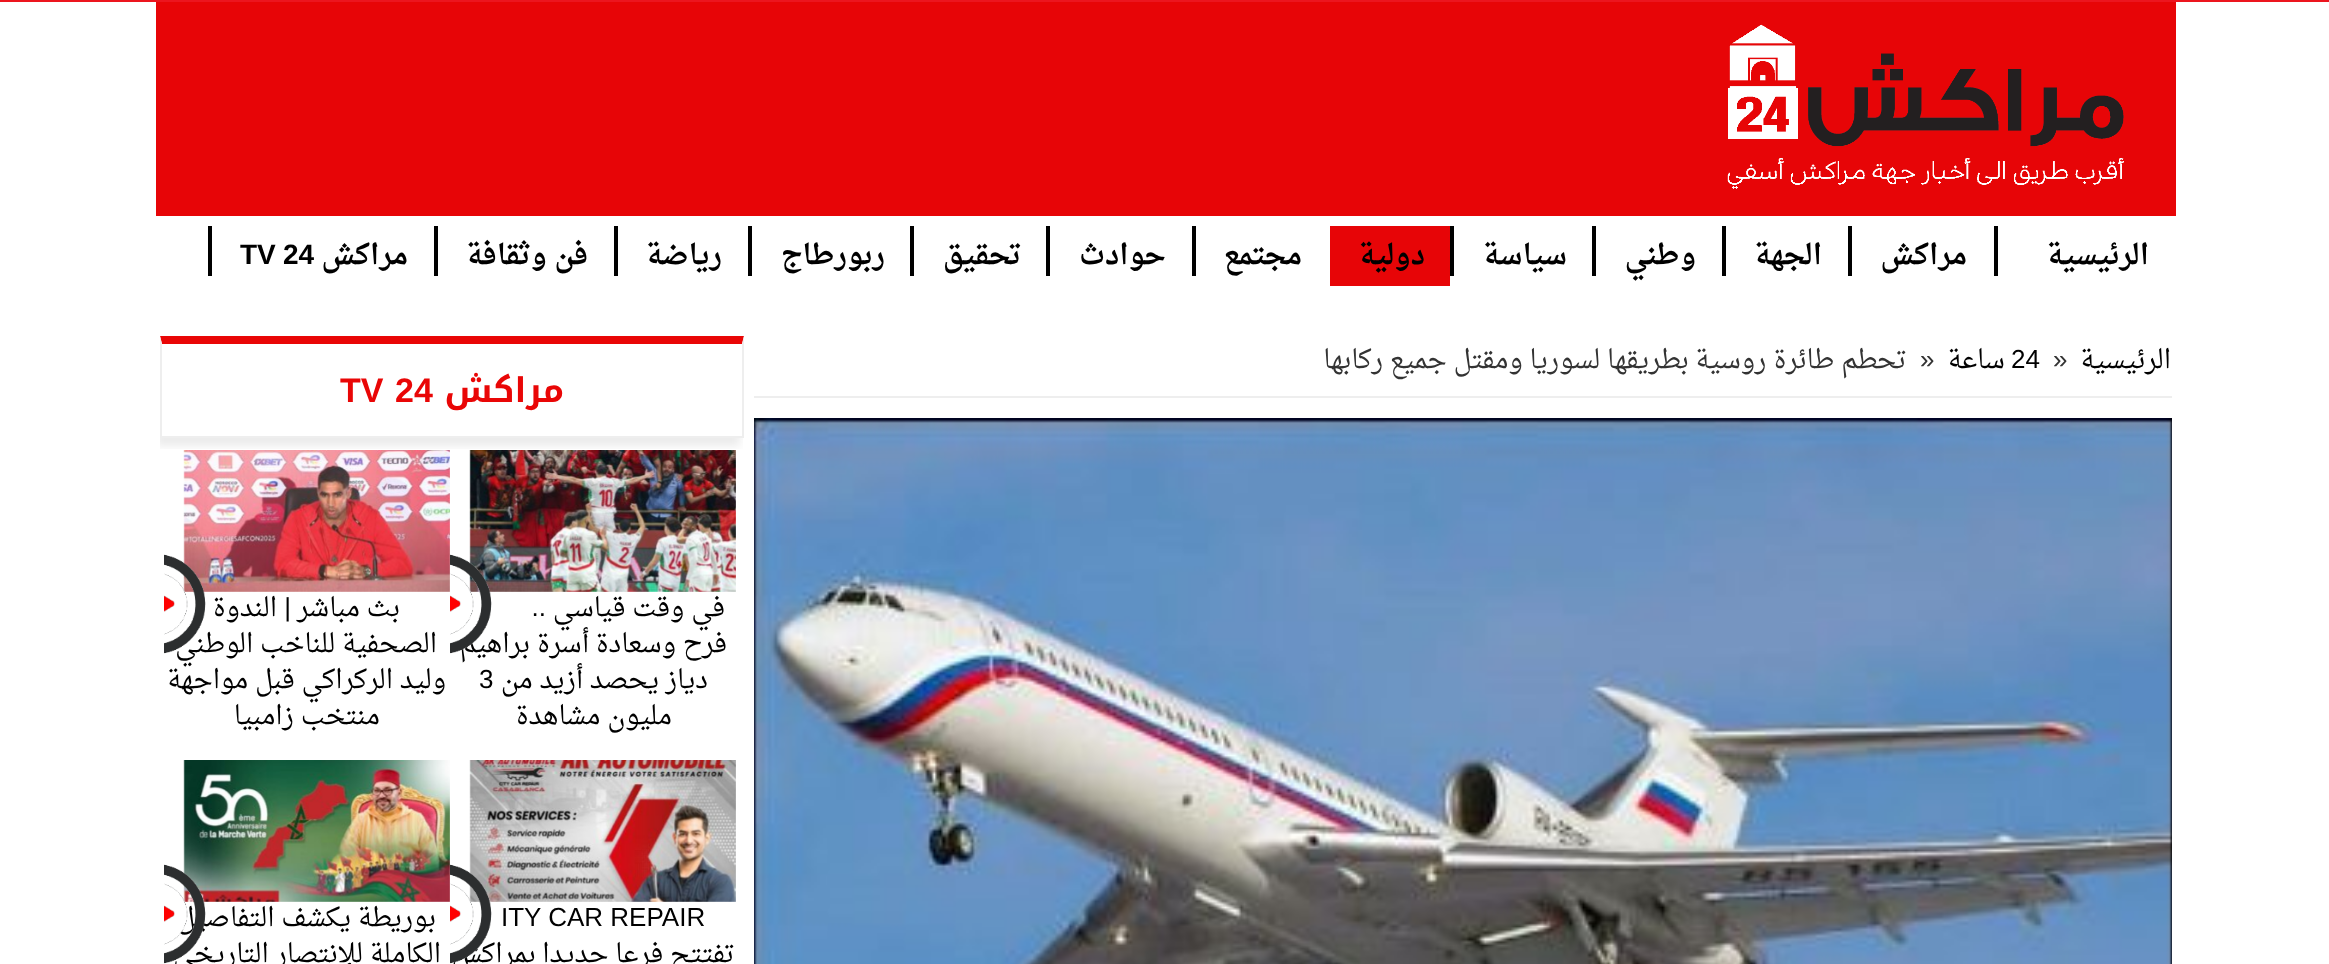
<svg xmlns="http://www.w3.org/2000/svg" xmlns:xlink="http://www.w3.org/1999/xlink" width="2329" height="964" viewBox="0 0 2329 964">
<style>
.cls-1{font:bold 28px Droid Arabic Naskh;direction:rtl;fill:#000000}
.cls-2{font:bold 28px Liberation Sans;fill:#000000}
.cls-3{font:26px Droid Arabic Naskh;direction:rtl;fill:#000000}
.cls-4{font:26px Liberation Sans;fill:#333333}
.cls-5{font:26px Liberation Sans;fill:#000000}
.cls-6{font:26px Droid Arabic Naskh;direction:rtl;fill:#333333}
.cls-7{font:bold 34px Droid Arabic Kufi;direction:rtl;fill:#e90606}
.cls-8{font:bold 34px Liberation Sans;fill:#e90606}
.cls-9{font:26px Liberation Sans;direction:rtl;fill:#000000}
</style>
<defs>
<clipPath id="clip1"><rect x="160" y="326" width="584" height="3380"/></clipPath>
<clipPath id="clip2"><rect x="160" y="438" width="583" height="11"/></clipPath>
</defs>
<rect width="100%" height="100%" fill="#ffffff"/>
<rect fill="#ec151e" x="0" y="0" width="2329" height="2"/>
<rect fill="#e70507" x="156" y="2" width="2020" height="214"/>
<image xlink:href="image0.png" x="1727" y="24" width="397" height="165"/>
<rect fill="#000000" x="1994" y="226" width="4" height="50"/>
<rect fill="#000000" x="1848" y="226" width="4" height="50"/>
<rect fill="#000000" x="1722" y="226" width="4" height="50"/>
<rect fill="#000000" x="1592" y="226" width="4" height="50"/>
<rect fill="#000000" x="1450" y="226" width="4" height="50"/>
<rect fill="#e70507" x="1330" y="226" width="120" height="60"/>
<rect fill="#000000" x="1192" y="226" width="4" height="50"/>
<rect fill="#000000" x="1046" y="226" width="4" height="50"/>
<rect fill="#000000" x="910" y="226" width="4" height="50"/>
<rect fill="#000000" x="748" y="226" width="4" height="50"/>
<rect fill="#000000" x="614" y="226" width="4" height="50"/>
<rect fill="#000000" x="434" y="226" width="4" height="50"/>
<rect fill="#000000" x="208" y="226" width="4" height="50"/>
<rect fill="#eeeeee" x="754" y="396" width="1418" height="2"/>
<image xlink:href="image1.png" x="754" y="418" width="1418" height="546"/>
<g clip-path="url(#clip1)">
<g clip-path="url(#clip2)">
<rect fill="#000000" fill-opacity="0.08" filter="blur(4px)" x="156" y="344" width="584" height="102"/>
</g>
</g>
<path fill="#e90606" d="M160 336H744L742 344H162Z"/>
<path fill="#eeeeee" d="M744 336V438L742 436V344Z"/>
<rect fill="#eeeeee" x="160" y="436" width="584" height="2"/>
<path fill="#eeeeee" d="M160 438V336L162 344V436Z"/>
<image xlink:href="image2.png" x="469" y="450" width="267" height="142"/>
<image xlink:href="image4.png" x="183" y="450" width="267" height="142"/>
<image xlink:href="image6.png" x="469" y="760" width="267" height="142"/>
<image xlink:href="image8.png" x="183" y="760" width="267" height="142"/>
<text class="cls-1" x="2149" y="264">الرئيسية</text>
<text class="cls-1" x="1967" y="264">مراكش</text>
<text class="cls-1" x="1822" y="264">الجهة</text>
<text class="cls-1" x="1696" y="264">وطني</text>
<text class="cls-1" x="1567" y="264">سياسة</text>
<text class="cls-1" x="1425" y="264">دولية</text>
<text class="cls-1" x="1302" y="264">مجتمع</text>
<text class="cls-1" x="1166" y="264">حوادث</text>
<text class="cls-1" x="1021" y="264">تحقيق</text>
<text class="cls-1" x="885" y="264">ربورطاج</text>
<text class="cls-1" x="722" y="264">رياضة</text>
<text class="cls-1" x="588" y="264">فن وثقافة</text>
<text class="cls-1" x="408" y="264">مراكش</text>
<text class="cls-2" x="283" y="264">24</text>
<text class="cls-2" x="240" y="264">TV</text>
<text class="cls-3" x="2171" y="368">الرئيسية</text>
<text class="cls-4" x="2053" y="368">»</text>
<text class="cls-5" x="2011" y="368">24</text>
<text class="cls-3" x="2005" y="368">ساعة</text>
<text class="cls-4" x="1920" y="368">»</text>
<text class="cls-6" x="1907" y="368">تحطم طائرة روسية بطريقها لسوريا ومقتل جميع ركابها</text>
<text class="cls-7" x="564" y="402">مراكش</text>
<text class="cls-8" x="395" y="402">24</text>
<text class="cls-8" x="340" y="402">TV</text>
<text class="cls-3" x="725" y="616">في وقت قياسي</text>
<text class="cls-9" x="546" y="616">..</text>
<text class="cls-3" x="727" y="652">فرح وسعادة</text>
<text class="cls-3" x="589" y="652">أسرة براهيم</text>
<image xlink:href="image3.png" x="450" y="554" width="42" height="100"/>
<text class="cls-3" x="708" y="688">دياز يحصد أزيد من</text>
<text class="cls-5" x="479" y="688">3</text>
<text class="cls-3" x="672" y="724">مليون مشاهدة</text>
<text class="cls-3" x="400" y="616">بث مباشر</text>
<text class="cls-9" x="291" y="616">|</text>
<text class="cls-3" x="277" y="616">الندوة</text>
<text class="cls-3" x="437" y="652">الصحفية للناخب الوطني</text>
<image xlink:href="image5.png" x="164" y="554" width="42" height="100"/>
<text class="cls-3" x="446" y="688">وليد الركراكي قبل مواجهة</text>
<text class="cls-3" x="380" y="724">منتخب زامبيا</text>
<text class="cls-5" x="501" y="926">ITY CAR REPAIR</text>
<text class="cls-3" x="735" y="962">تفتتح فرعا جديدا بمراكش</text>
<image xlink:href="image7.png" x="450" y="864" width="42" height="100"/>
<text class="cls-3" x="436" y="926">بوريطة</text>
<text class="cls-3" x="351" y="926">يكشف التفاصيل</text>
<text class="cls-3" x="441" y="962">الكاملة للإنتصار التاريخي</text>
<image xlink:href="image9.png" x="164" y="864" width="42" height="100"/>
</svg>
